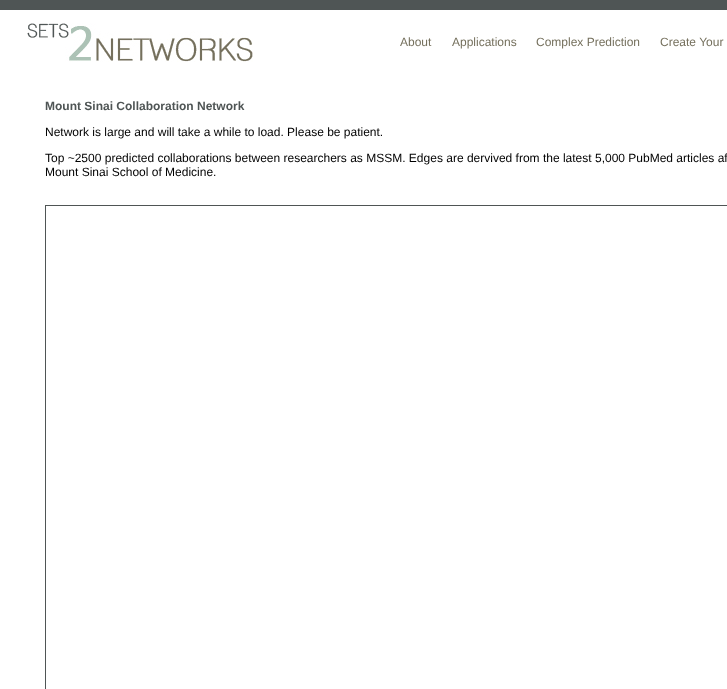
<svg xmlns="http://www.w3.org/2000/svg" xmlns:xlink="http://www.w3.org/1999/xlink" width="727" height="689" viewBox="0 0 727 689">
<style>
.cls-1{font:12px Liberation Sans;fill:#75705d}
.cls-2{font:bold 12px Liberation Sans;fill:#4f5555}
.cls-3{font:12px Liberation Sans;fill:#000000}
</style>
<rect width="100%" height="100%" fill="#4f5555"/>
<rect fill="#ffffff" x="0" y="10" width="727" height="679"/>
<image xlink:href="image0.png" x="27" y="23" width="226" height="39"/>
<rect fill="none" stroke="#4f5555" x="45.5" y="205.5" width="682" height="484"/>
<text class="cls-1" x="400" y="46">About</text>
<text class="cls-1" x="452" y="46">Applications</text>
<text class="cls-1" x="536" y="46">Complex Prediction</text>
<text class="cls-1" x="660" y="46">Create Your</text>
<text class="cls-2" x="45" y="110">Mount Sinai Collaboration Network</text>
<text class="cls-3" x="45" y="136">Network is large and will take a while to load. Please be patient.</text>
<text class="cls-3"><tspan x="45" y="162">Top ~2500 predicted collaborations between researchers as MSSM. Edges are dervived from the latest 5,000 PubMed articles af</tspan><tspan x="45" y="176">Mount Sinai School of Medicine.</tspan></text>
</svg>
